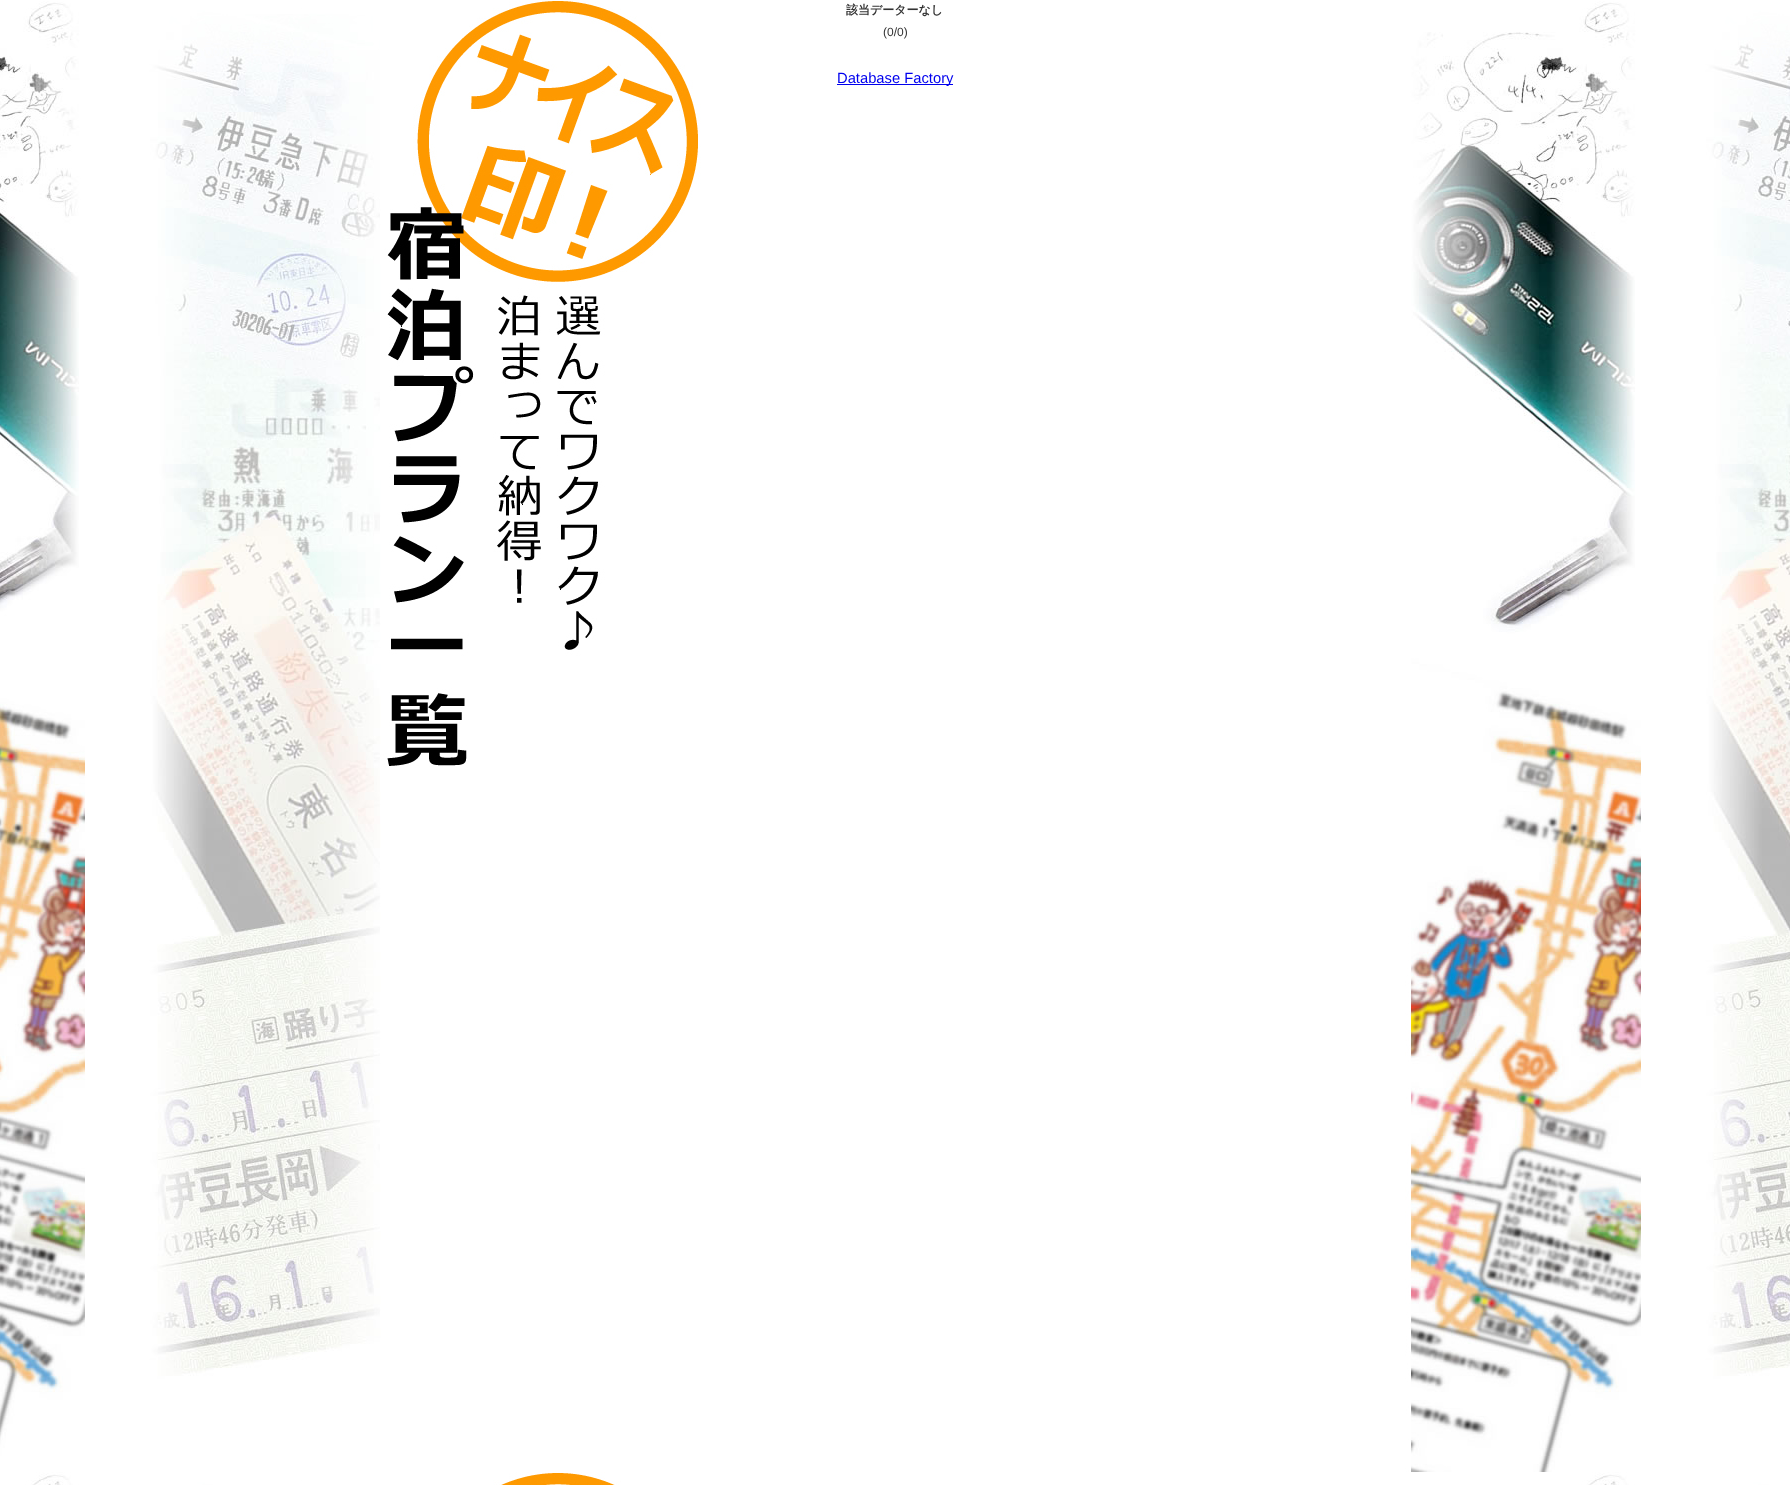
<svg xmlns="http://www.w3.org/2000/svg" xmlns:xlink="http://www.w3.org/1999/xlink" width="1790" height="1485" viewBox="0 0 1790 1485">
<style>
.cls-1{font:bold 12px WenQuanYi Zen Hei;fill:#333333}
.cls-2{font:12px Liberation Sans;fill:#333333}
.cls-3{font:14.75px Liberation Sans;fill:#0000ee}
</style>
<rect width="100%" height="100%" fill="#ffffff"/>
<image xlink:href="image0.png" x="0" y="1" width="1790" height="1484"/>
<rect fill="#0000ee" x="837" y="84" width="116" height="1"/>
<text class="cls-1" x="846" y="14">該当データーなし</text>
<text class="cls-2" x="883" y="36">(0/0)</text>
<text class="cls-3" x="837" y="83">Database Factory</text>
</svg>
